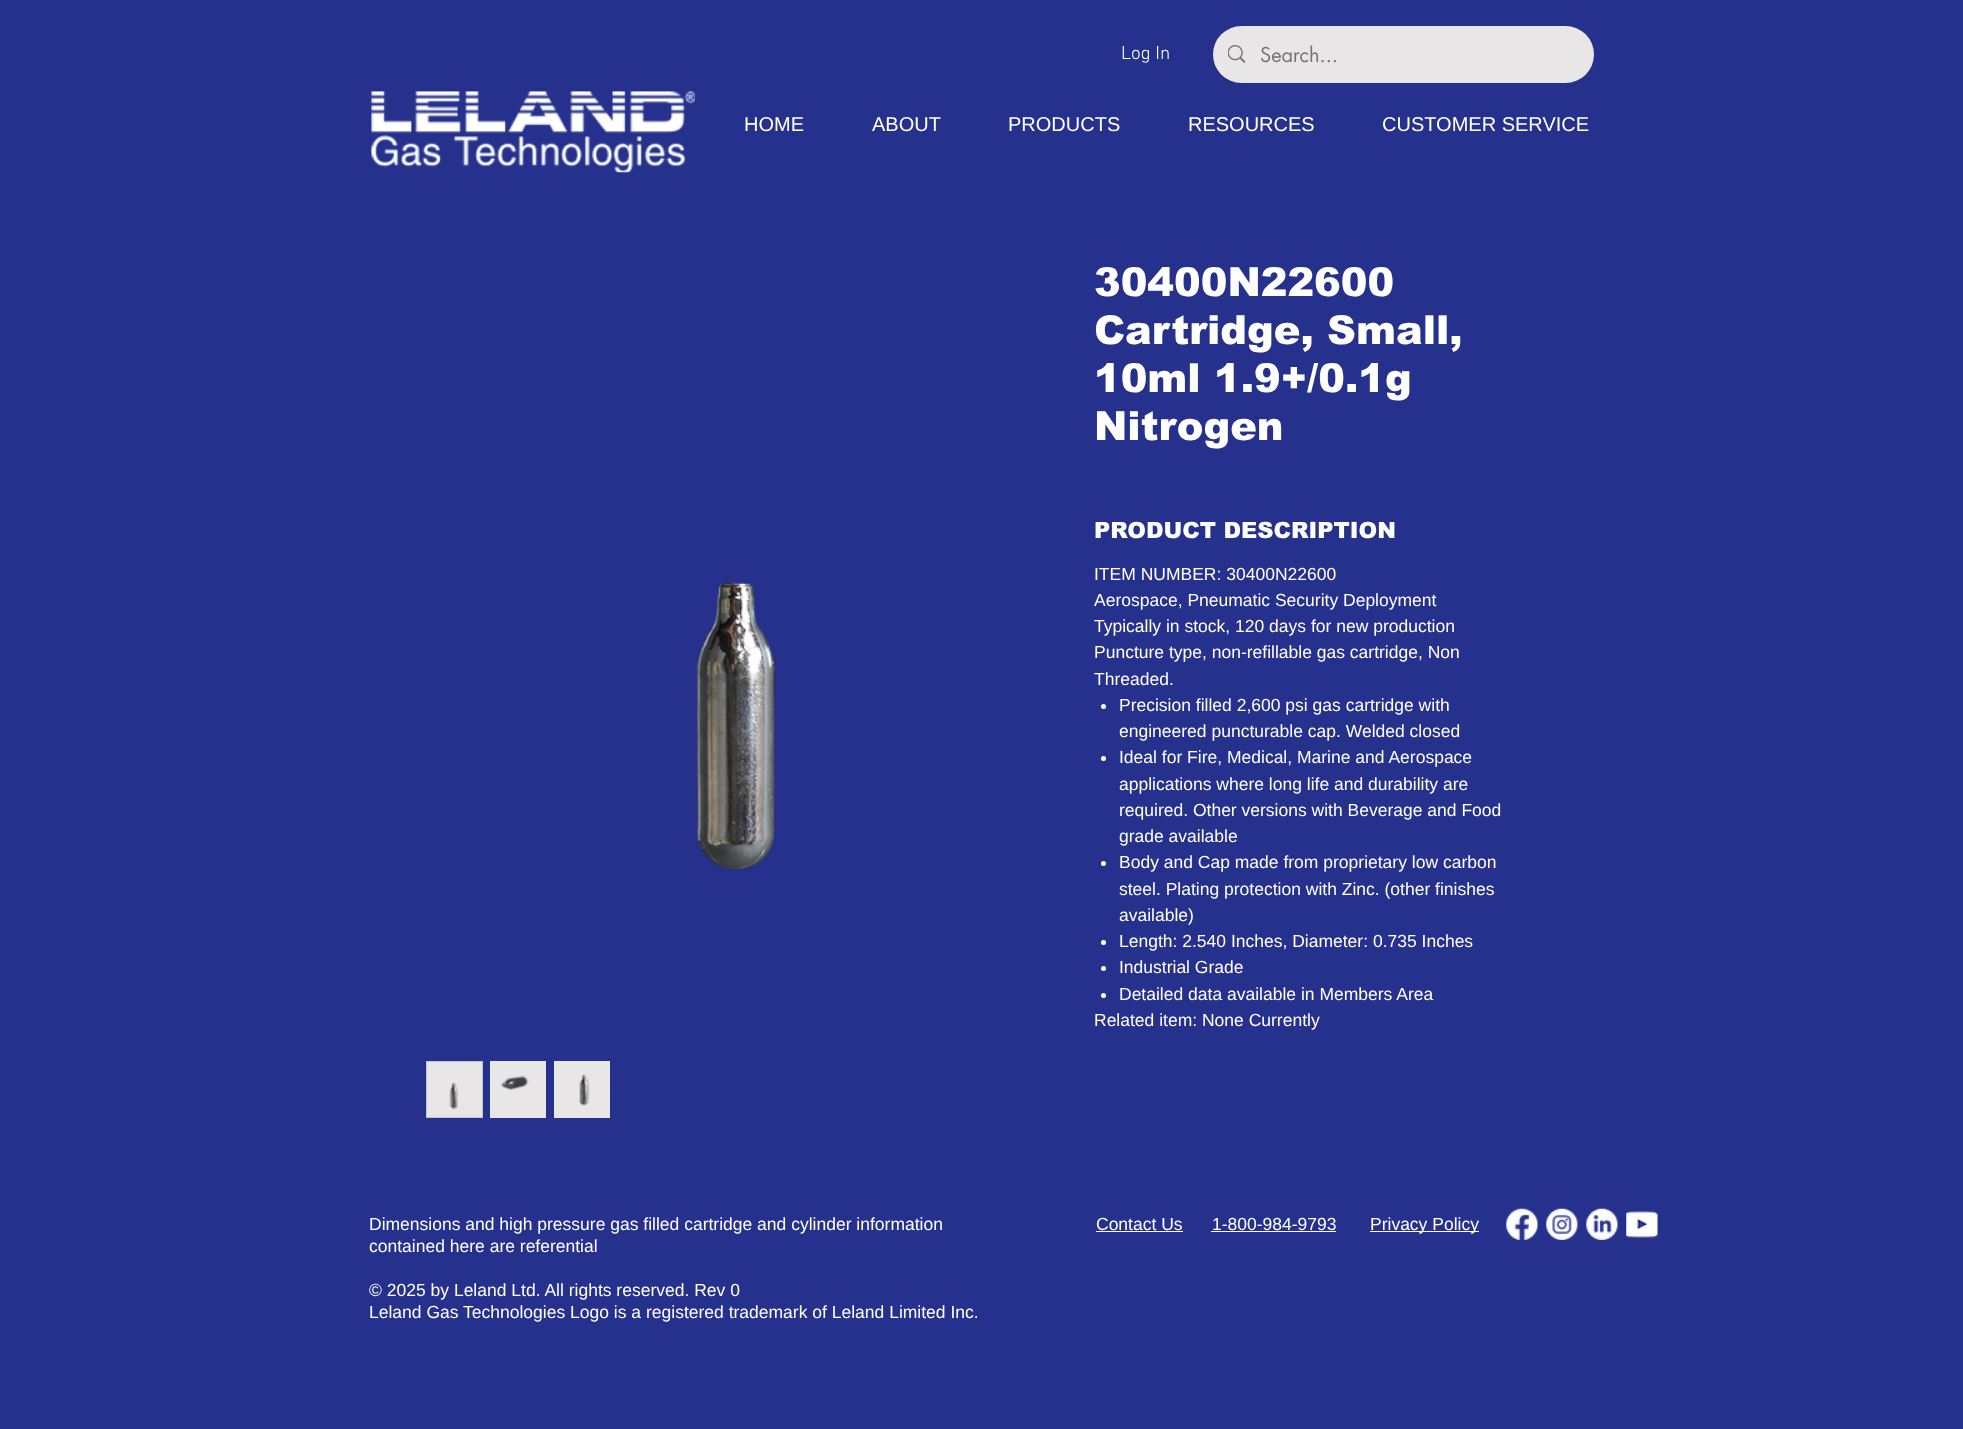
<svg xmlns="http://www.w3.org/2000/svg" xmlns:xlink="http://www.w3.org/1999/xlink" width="1963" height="1429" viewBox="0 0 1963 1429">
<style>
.cls-1{font:300 19px 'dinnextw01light';fill:#ffffff}
.cls-2{font:20px futura;fill:#767676}
.cls-3{font:20px Liberation Sans;fill:#ffffff}
.cls-4{font:900 40px arial;fill:#ffffff}
.cls-5{font:900 22.5px arial;fill:#ffffff}
.cls-6{font:17.5px Liberation Sans;fill:#ffffff}
</style>
<rect width="100%" height="100%" fill="#25318d"/>
<rect fill="#e8e6e6" x="1213" y="26" width="381" height="57" rx="28.5"/>
<image xlink:href="image0.png" x="1228" y="45" width="17" height="18"/>
<image xlink:href="image1.png" x="371" y="91" width="324" height="82"/>
<image xlink:href="image2.png" x="696" y="582" width="80" height="289"/>
<rect fill="#e8e6e6" stroke="#c7c7c7" x="426.5" y="1061.5" width="56" height="56"/>
<image xlink:href="image3.png" x="449" y="1082" width="10" height="28"/>
<rect fill="#e8e6e6" x="490" y="1061" width="56" height="57"/>
<image xlink:href="image4.png" x="500" y="1075" width="29" height="16"/>
<rect fill="#e8e6e6" x="554" y="1061" width="56" height="57"/>
<image xlink:href="image5.png" x="579" y="1074" width="11" height="32"/>
<circle fill="#ffffff" cx="1103.5" cy="706.5" r="2.5"/>
<circle fill="#ffffff" cx="1103.5" cy="758.5" r="2.5"/>
<circle fill="#ffffff" cx="1103.5" cy="863.5" r="2.5"/>
<circle fill="#ffffff" cx="1103.5" cy="942.5" r="2.5"/>
<circle fill="#ffffff" cx="1103.5" cy="968.5" r="2.5"/>
<circle fill="#ffffff" cx="1103.5" cy="995.5" r="2.5"/>
<rect fill="#ffffff" x="1096" y="1231" width="87" height="1"/>
<rect fill="#ffffff" x="1211" y="1231" width="125" height="1"/>
<rect fill="#ffffff" x="1370" y="1231" width="109" height="1"/>
<image xlink:href="image6.png" x="1506" y="1208" width="32" height="32"/>
<image xlink:href="image7.png" x="1546" y="1208" width="32" height="32"/>
<image xlink:href="image8.png" x="1586" y="1208" width="32" height="32"/>
<image xlink:href="image9.png" x="1626" y="1211" width="32" height="27"/>
<text class="cls-1" x="1121" y="59">Log In</text>
<text class="cls-2" x="1260" y="62">Search...</text>
<text class="cls-3" x="744" y="131">HOME</text>
<text class="cls-3" x="872" y="131">ABOUT</text>
<text class="cls-3" x="1008" y="131">PRODUCTS</text>
<text class="cls-3" x="1188" y="131">RESOURCES</text>
<text class="cls-3" x="1382" y="131">CUSTOMER SERVICE</text>
<text class="cls-4"><tspan x="1094" y="296">30400N22600</tspan><tspan x="1094" y="344">Cartridge, Small,</tspan><tspan x="1094" y="392">10ml 1.9+/0.1g</tspan><tspan x="1094" y="440">Nitrogen</tspan></text>
<text class="cls-5" x="1094" y="538">PRODUCT DESCRIPTION</text>
<text class="cls-6"><tspan x="1094" y="580">ITEM NUMBER: 30400N22600</tspan><tspan x="1094" y="606">Aerospace, Pneumatic Security Deployment</tspan><tspan x="1094" y="632">Typically in stock, 120 days for new production</tspan><tspan x="1094" y="658">Puncture type, non-refillable gas cartridge, Non</tspan><tspan x="1094" y="685">Threaded.</tspan></text>
<text class="cls-6"><tspan x="1119" y="711">Precision filled 2,600 psi gas cartridge with</tspan><tspan x="1119" y="737">engineered puncturable cap. Welded closed</tspan><tspan x="1119" y="763">Ideal for Fire, Medical, Marine and Aerospace</tspan><tspan x="1119" y="790">applications where long life and durability are</tspan><tspan x="1119" y="816">required. Other versions with Beverage and Food</tspan><tspan x="1119" y="842">grade available</tspan><tspan x="1119" y="868">Body and Cap made from proprietary low carbon</tspan><tspan x="1119" y="895">steel. Plating protection with Zinc. (other finishes</tspan><tspan x="1119" y="921">available)</tspan><tspan x="1119" y="947">Length: 2.540 Inches, Diameter: 0.735 Inches</tspan><tspan x="1119" y="973">Industrial Grade</tspan><tspan x="1119" y="1000">Detailed data available in Members Area</tspan></text>
<text class="cls-6" x="1094" y="1026">Related item: None Currently</text>
<text class="cls-6"><tspan x="369" y="1230">Dimensions and high pressure gas filled cartridge and cylinder information</tspan><tspan x="369" y="1252">contained here are referential</tspan></text>
<text class="cls-6"><tspan x="369" y="1296">© 2025 by Leland Ltd. All rights reserved. Rev 0</tspan><tspan x="369" y="1318">Leland Gas Technologies Logo is a registered trademark of Leland Limited Inc.</tspan></text>
<text class="cls-6" x="1096" y="1230">Contact Us</text>
<text class="cls-6" x="1212" y="1230">1-800-984-9793</text>
<text class="cls-6" x="1370" y="1230">Privacy Policy</text>
</svg>
